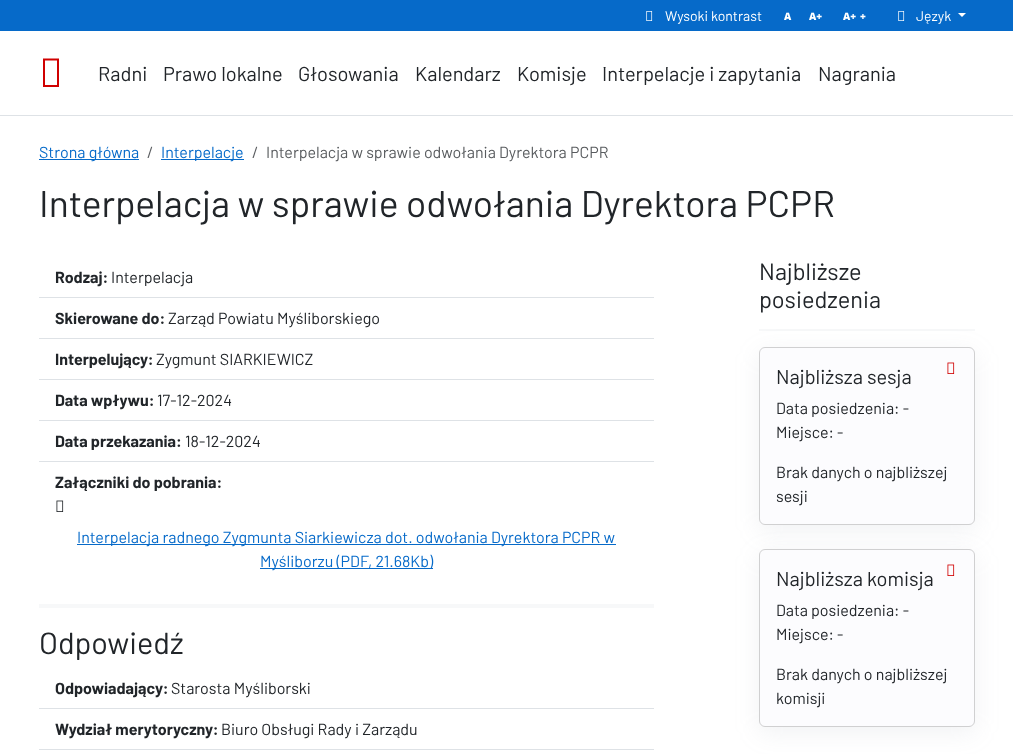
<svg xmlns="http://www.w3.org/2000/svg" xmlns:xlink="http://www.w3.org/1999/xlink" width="1013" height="754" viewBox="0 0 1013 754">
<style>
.cls-1{font:14px Barlow;fill:#ffffff}
.cls-2{font:900 10px Noto Sans;fill:#ffffff}
.cls-3{font:20px Barlow;fill:#212529}
.cls-4{font:16px Barlow;fill:#066ac9}
.cls-5{font:16px Barlow;fill:#595c5f}
.cls-6{font:37.2px Barlow;fill:#212529}
.cls-7{font:bold 16px Barlow;fill:#212529}
.cls-8{font:16px Barlow;fill:#212529}
.cls-9{font:30.5px Barlow;fill:#212529}
.cls-10{font:23.5px Barlow;fill:#212529}
</style>
<rect width="100%" height="100%" fill="#ffffff"/>
<rect fill="#066ac9" x="0" y="0" width="1013" height="31"/>
<image xlink:href="image0.png" x="646" y="11" width="7" height="10"/>
<image xlink:href="image0.png" x="898" y="11" width="7" height="10"/>
<path fill="#ffffff" d="M958 13H966L962 17Z"/>
<rect fill="#dee2e6" x="0" y="115" width="1013" height="1"/>
<path fill="#d00000" d="M43 87V58.5H59V87ZM45 85H57V60.5H45Z"/>
<rect fill="#066ac9" x="39" y="159" width="100" height="1"/>
<rect fill="#066ac9" x="161" y="159" width="83" height="1"/>
<rect fill="#dee2e6" x="39" y="297" width="615" height="1"/>
<rect fill="#dee2e6" x="39" y="338" width="615" height="1"/>
<rect fill="#dee2e6" x="39" y="379" width="615" height="1"/>
<rect fill="#dee2e6" x="39" y="420" width="615" height="1"/>
<rect fill="#dee2e6" x="39" y="461" width="615" height="1"/>
<image xlink:href="image1.png" x="56" y="500" width="8" height="12"/>
<rect fill="#066ac9" x="77" y="544" width="539" height="1"/>
<rect fill="#066ac9" x="260" y="568" width="173" height="1"/>
<rect fill="#f7f8f9" x="39" y="604" width="615" height="4"/>
<rect fill="#dee2e6" x="39" y="708" width="615" height="1"/>
<rect fill="#dee2e6" x="39" y="749" width="615" height="1"/>
<rect fill="#f7f8f9" x="759" y="329" width="216" height="2"/>
<rect fill="#8c98a4" fill-opacity="0.12" filter="blur(12px)" x="759" y="353" width="216" height="178" rx="6"/>
<rect fill="#fcfcfe" stroke="#d0d0d1" x="759.5" y="347.5" width="215" height="177" rx="5.5"/>
<image xlink:href="image2.png" x="947" y="362" width="8" height="12"/>
<rect fill="#8c98a4" fill-opacity="0.12" filter="blur(12px)" x="759" y="555" width="216" height="178" rx="6"/>
<rect fill="#fcfcfe" stroke="#d0d0d1" x="759.5" y="549.5" width="215" height="177" rx="5.5"/>
<image xlink:href="image2.png" x="947" y="564" width="8" height="12"/>
<text class="cls-1" x="665" y="21">Wysoki kontrast</text>
<text class="cls-2" x="784" y="20">A</text>
<text class="cls-2" x="809" y="20">A+</text>
<text class="cls-2" x="843" y="20">A+</text>
<text class="cls-2" x="860" y="20">+</text>
<text class="cls-1" x="916" y="21">Język</text>
<text class="cls-3" x="98" y="81">Radni</text>
<text class="cls-3" x="163" y="81">Prawo lokalne</text>
<text class="cls-3" x="298" y="81">Głosowania</text>
<text class="cls-3" x="415" y="81">Kalendarz</text>
<text class="cls-3" x="517" y="81">Komisje</text>
<text class="cls-3" x="602" y="81">Interpelacje i zapytania</text>
<text class="cls-3" x="818" y="81">Nagrania</text>
<text class="cls-4" x="39" y="158">Strona główna</text>
<text class="cls-5" x="147" y="158">/</text>
<text class="cls-4" x="161" y="158">Interpelacje</text>
<text class="cls-5" x="252" y="158">/</text>
<text class="cls-5" x="266" y="158">Interpelacja w sprawie odwołania Dyrektora PCPR</text>
<text class="cls-6" x="39" y="217">Interpelacja w sprawie odwołania Dyrektora PCPR</text>
<text class="cls-7" x="55" y="283">Rodzaj:</text>
<text class="cls-8" x="111" y="283">Interpelacja</text>
<text class="cls-7" x="55" y="324">Skierowane do:</text>
<text class="cls-8" x="168" y="324">Zarząd Powiatu Myśliborskiego</text>
<text class="cls-7" x="55" y="365">Interpelujący:</text>
<text class="cls-8" x="156" y="365">Zygmunt SIARKIEWICZ</text>
<text class="cls-7" x="55" y="406">Data wpływu:</text>
<text class="cls-8" x="157" y="406">17-12-2024</text>
<text class="cls-7" x="55" y="447">Data przekazania:</text>
<text class="cls-8" x="185" y="447">18-12-2024</text>
<text class="cls-7" x="55" y="488">Załączniki do pobrania:</text>
<text class="cls-4" x="77" y="543">Interpelacja radnego Zygmunta Siarkiewicza dot. odwołania Dyrektora PCPR w</text>
<text class="cls-4" x="260" y="567">Myśliborzu (PDF, 21.68Kb)</text>
<text class="cls-9" x="39" y="654">Odpowiedź</text>
<text class="cls-7" x="55" y="694">Odpowiadający:</text>
<text class="cls-8" x="171" y="694">Starosta Myśliborski</text>
<text class="cls-7" x="55" y="735">Wydział merytoryczny:</text>
<text class="cls-8" x="221" y="735">Biuro Obsługi Rady i Zarządu</text>
<text class="cls-10"><tspan x="759" y="280">Najbliższe</tspan><tspan x="759" y="308">posiedzenia</tspan></text>
<text class="cls-3" x="776" y="384">Najbliższa sesja</text>
<text class="cls-8"><tspan x="776" y="414">Data posiedzenia: -</tspan><tspan x="776" y="438">Miejsce: -</tspan></text>
<text class="cls-8"><tspan x="776" y="478">Brak danych o najbliższej</tspan><tspan x="776" y="502">sesji</tspan></text>
<text class="cls-3" x="776" y="586">Najbliższa komisja</text>
<text class="cls-8"><tspan x="776" y="616">Data posiedzenia: -</tspan><tspan x="776" y="640">Miejsce: -</tspan></text>
<text class="cls-8"><tspan x="776" y="680">Brak danych o najbliższej</tspan><tspan x="776" y="704">komisji</tspan></text>
</svg>
